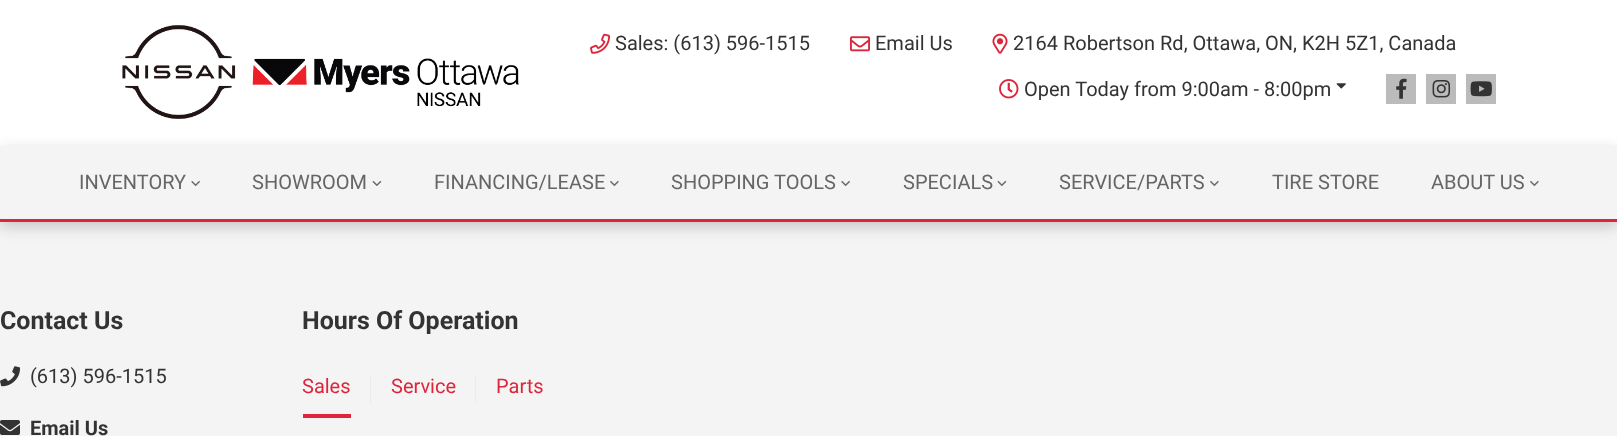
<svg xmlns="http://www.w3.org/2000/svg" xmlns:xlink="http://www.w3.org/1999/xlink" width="1617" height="436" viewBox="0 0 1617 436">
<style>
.cls-1{font:20px Roboto;fill:#333333}
.cls-2{font:20px Roboto;fill:#666666}
.cls-3{font:bold 25px Roboto;fill:#333333}
.cls-4{font:bold 20px Roboto;fill:#333333}
.cls-5{font:20px Roboto;fill:#dd263b}
</style>
<rect width="100%" height="100%" fill="#ffffff"/>
<image xlink:href="image0.png" x="122" y="25" width="397" height="94"/>
<image xlink:href="image1.png" x="590" y="33" width="20" height="21"/>
<image xlink:href="image2.png" x="850" y="36" width="20" height="16"/>
<image xlink:href="image3.png" x="992" y="33" width="16" height="21"/>
<image xlink:href="image4.png" x="999" y="79" width="20" height="20"/>
<image xlink:href="image5.png" x="1336" y="83" width="10" height="6"/>
<rect fill="#bbbbbb" x="1386" y="74" width="30" height="30"/>
<image xlink:href="image6.png" x="1396" y="78" width="11" height="21"/>
<rect fill="#bbbbbb" x="1426" y="74" width="30" height="30"/>
<image xlink:href="image7.png" x="1432" y="80" width="19" height="18"/>
<rect fill="#bbbbbb" x="1466" y="74" width="30" height="30"/>
<image xlink:href="image8.png" x="1470" y="81" width="22" height="16"/>
<rect fill="#f4f4f4" x="0" y="222" width="1617" height="214"/>
<rect fill="#000000" fill-opacity="0.2" filter="blur(7.5px)" x="0" y="151" width="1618" height="75"/>
<rect fill="#f4f4f4" x="0" y="146" width="1617" height="73"/>
<rect fill="#dd263b" x="0" y="219" width="1617" height="3"/>
<image xlink:href="image9.png" x="191" y="181" width="9" height="6"/>
<image xlink:href="image10.png" x="372" y="180" width="10" height="6"/>
<image xlink:href="image11.png" x="610" y="181" width="9" height="6"/>
<image xlink:href="image9.png" x="841" y="181" width="9" height="6"/>
<image xlink:href="image10.png" x="997" y="180" width="10" height="6"/>
<image xlink:href="image11.png" x="1210" y="181" width="9" height="6"/>
<image xlink:href="image11.png" x="1530" y="181" width="9" height="6"/>
<image xlink:href="image12.png" x="0" y="366" width="20" height="21"/>
<image xlink:href="image13.png" x="0" y="420" width="20" height="15"/>
<rect fill="#dd263b" x="303" y="414" width="48" height="4"/>
<rect fill="#ececec" x="370" y="375" width="1" height="29"/>
<rect fill="#ececec" x="475" y="375" width="1" height="29"/>
<text class="cls-1" x="615" y="50">Sales: (613) 596-1515</text>
<text class="cls-1" x="875" y="50">Email Us</text>
<text class="cls-1" x="1013" y="50">2164 Robertson Rd, Ottawa, ON, K2H 5Z1, Canada</text>
<text class="cls-1" x="1024" y="96">Open Today from 9:00am - 8:00pm</text>
<text class="cls-2" x="79" y="189">INVENTORY</text>
<text class="cls-2" x="252" y="189">SHOWROOM</text>
<text class="cls-2" x="434" y="189">FINANCING/LEASE</text>
<text class="cls-2" x="671" y="189">SHOPPING TOOLS</text>
<text class="cls-2" x="903" y="189">SPECIALS</text>
<text class="cls-2" x="1059" y="189">SERVICE/PARTS</text>
<text class="cls-2" x="1272" y="189">TIRE STORE</text>
<text class="cls-2" x="1431" y="189">ABOUT US</text>
<text class="cls-3" x="0" y="329">Contact Us</text>
<text class="cls-1" x="30" y="383">(613) 596-1515</text>
<text class="cls-4" x="30" y="435">Email Us</text>
<text class="cls-3" x="302" y="329">Hours Of Operation</text>
<text class="cls-5" x="302" y="393">Sales</text>
<text class="cls-5" x="391" y="393">Service</text>
<text class="cls-5" x="496" y="393">Parts</text>
</svg>
